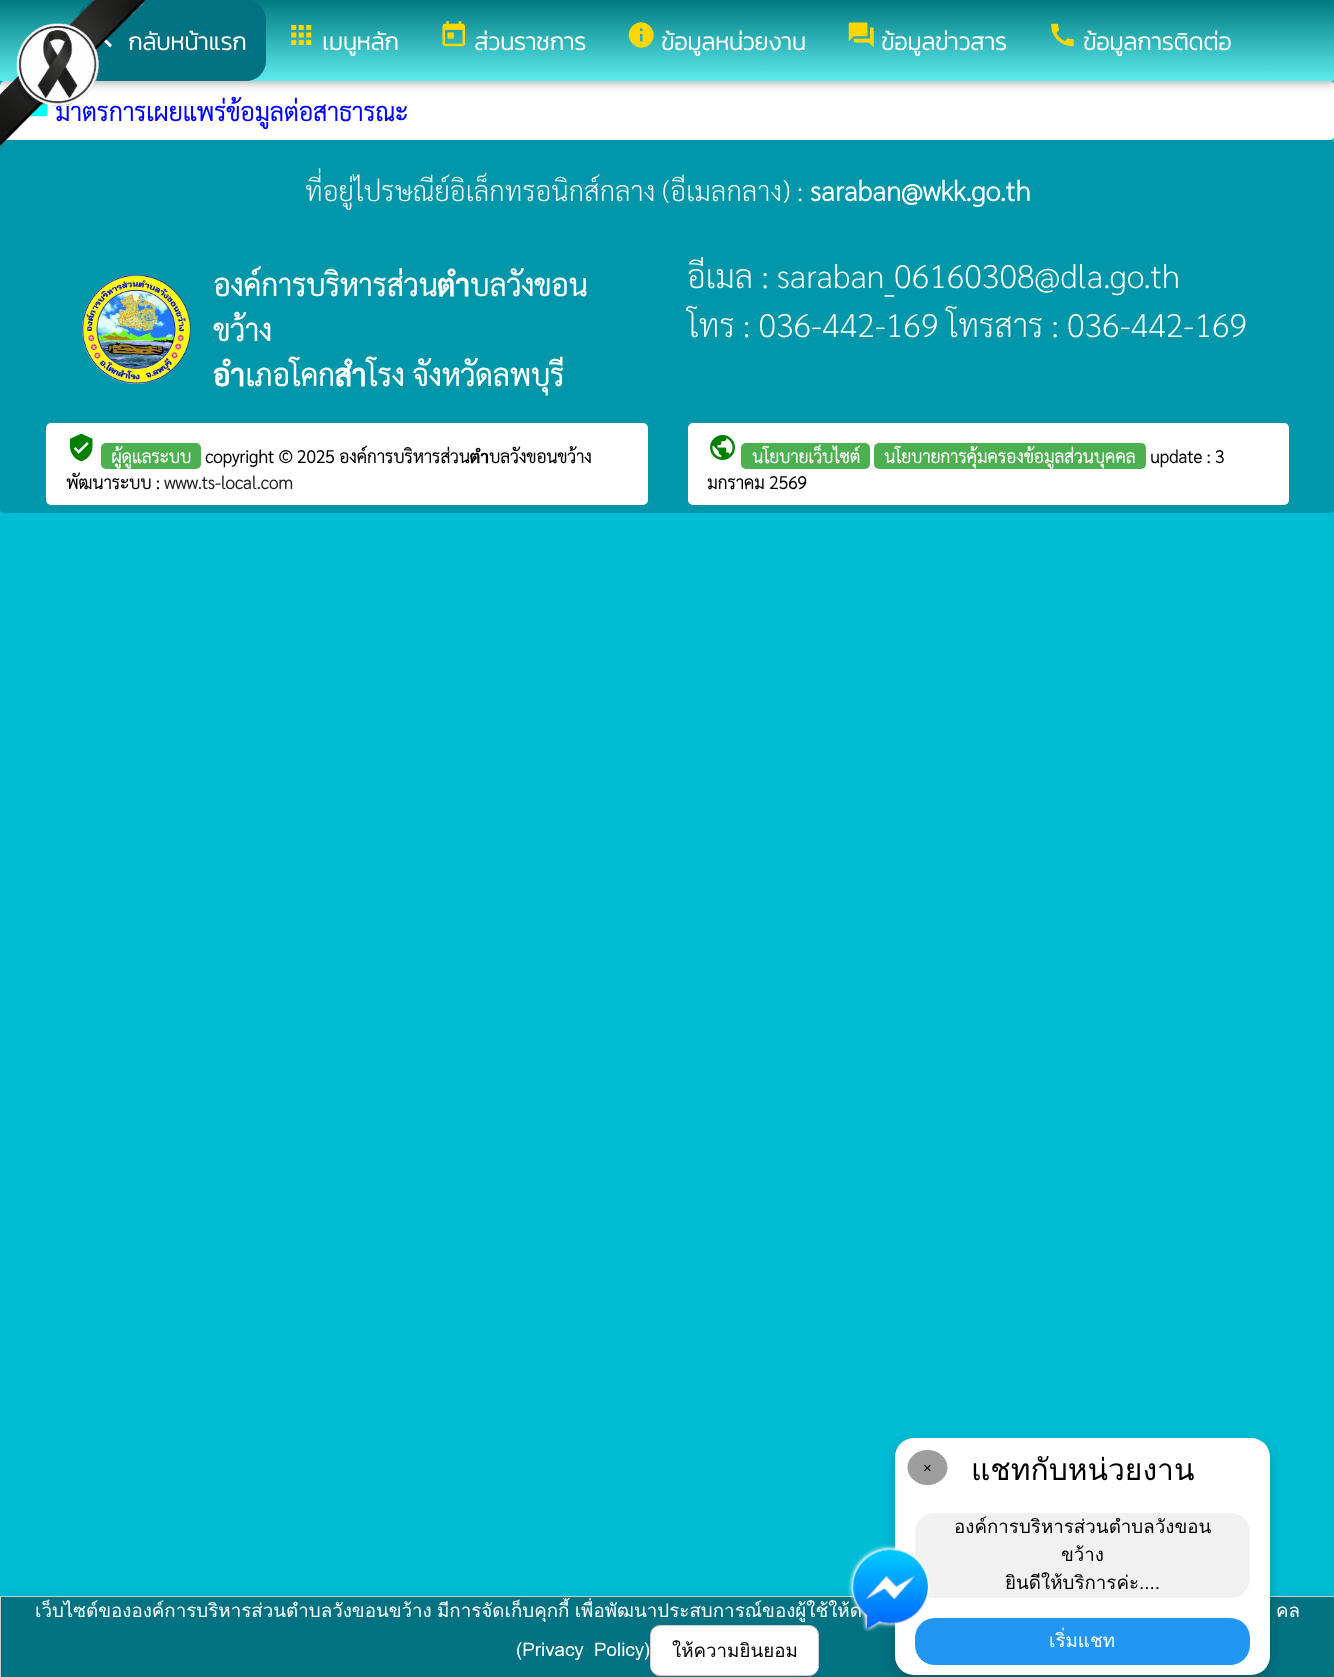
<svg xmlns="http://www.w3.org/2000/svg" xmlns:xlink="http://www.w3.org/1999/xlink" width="1334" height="1677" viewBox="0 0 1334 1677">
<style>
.cls-1{font:bold 23.75px Kanit;fill:#ffffff}
.cls-2{font:bold 25px Sarabun;fill:#0000ff}
.cls-3{font:200 27.5px Sarabun;fill:#ffffff}
.cls-4{font:bold 27.5px Sarabun;fill:#ffffff}
.cls-5{font:bold 30px Sarabun;fill:#ffffff}
.cls-6{font:200 32.5px Sarabun;fill:#ffffff}
.cls-7{font:bold 17.5px Sarabun;fill:#ffffff}
.cls-8{font:bold 17.5px Sarabun;fill:#000000}
.cls-9{font:bold 17.5px Sarabun;fill:#222222}
.cls-10{font:15px Liberation Sans;fill:#000000}
.cls-11{font:30px Loma;fill:#000000}
.cls-12{font:18.75px Loma;fill:#000000}
.cls-13{font:18.75px Loma;fill:#ffffff}
</style>
<defs>
<linearGradient id="g1" gradientUnits="userSpaceOnUse" x1="668" y1="0" x2="668" y2="81"><stop offset="0" stop-color="#007a80"/><stop offset="1" stop-color="#5decee"/></linearGradient>
<clipPath id="clip1"><rect x="1" y="1598" width="1333" height="78"/></clipPath>
</defs>
<rect width="100%" height="100%" fill="#00bcd4"/>
<rect fill="#ffffff" x="0" y="81" width="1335" height="59" rx="5"/>
<rect fill="#000000" fill-opacity="0.12" filter="blur(6px)" x="0" y="3" width="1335" height="81"/>
<rect fill="#000000" fill-opacity="0.16" filter="blur(3px)" x="0" y="3" width="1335" height="81"/>
<rect fill="url(#g1)" x="0" y="0" width="1334" height="81"/>
<rect fill="#007281" x="78" y="0" width="188" height="81" rx="20"/>
<path fill="#ffffff" d="M112 25L102 35L112 45L110 47.5L97.5 35L110 22.5Z"/>
<image xlink:href="image1.png" x="291" y="25" width="21" height="20"/>
<image xlink:href="image2.png" x="442" y="21" width="23" height="26"/>
<path fill="#ffd700" d="M642.5 31V28.5H640V31ZM642.5 41.5V34H640V41.5ZM632.5 26C644 14.5 661.5 32 650 44C638.5 55.5 621 38 632.5 26Z"/>
<image xlink:href="image3.png" x="848" y="22" width="26" height="26"/>
<image xlink:href="image4.png" x="1051" y="23" width="23" height="24"/>
<image xlink:href="image5.png" x="28" y="104" width="20" height="13"/>
<rect fill="#0097ab" x="0" y="140" width="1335" height="373" rx="5"/>
<image xlink:href="image6.png" x="82" y="274" width="109" height="110"/>
<rect fill="#ffffff" x="46" y="423" width="602" height="82" rx="5"/>
<image xlink:href="image7.png" x="70" y="433" width="23" height="29"/>
<rect fill="#4caf50" x="101" y="443" width="100" height="26" rx="5"/>
<rect fill="#ffffff" x="688" y="423" width="601" height="82" rx="5"/>
<image xlink:href="image8.png" x="710" y="435" width="25" height="25"/>
<rect fill="#4caf50" x="741" y="443" width="129" height="26" rx="5"/>
<rect fill="#4caf50" x="874" y="443" width="272" height="26" rx="5"/>
<rect fill="#000000" fill-opacity="0.12" filter="blur(6px)" x="0" y="1599" width="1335" height="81"/>
<rect fill="#007281" stroke="#cccccc" x="0.5" y="1596.5" width="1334" height="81"/>
<rect fill="#000000" fill-opacity="0.2" filter="blur(6px)" x="895" y="1443" width="375" height="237" rx="19"/>
<rect fill="#ffffff" x="895" y="1438" width="375" height="237" rx="19"/>
<ellipse fill="#9e9e9e" cx="927.5" cy="1467.5" rx="20" ry="17.5"/>
<rect fill="#f1f1f1" x="915" y="1513" width="335" height="85" rx="20"/>
<rect fill="#2196f3" x="915" y="1618" width="335" height="47" rx="20"/>
<rect fill="#ffffff" stroke="#cccccc" x="650.5" y="1625.5" width="168" height="50" rx="9.5"/>
<text class="cls-1" x="128" y="50">กลับหน้าแรก</text>
<text class="cls-1" x="322" y="50">เมนูหลัก</text>
<text class="cls-1" x="474" y="50">ส่วนราชการ</text>
<text class="cls-1" x="661" y="50">ข้อมูลหน่วยงาน</text>
<text class="cls-1" x="881" y="50">ข้อมูลข่าวสาร</text>
<text class="cls-1" x="1083" y="50">ข้อมูลการติดต่อ</text>
<text class="cls-2" x="55" y="121">มาตรการเผยแพร่ข้อมูลต่อสาธารณะ</text>
<image xlink:href="image0.png" x="0" y="0" width="146" height="147"/>
<text class="cls-3" x="305" y="201">ที่อยู่ไปรษณีย์อิเล็กทรอนิกส์กลาง (อีเมลกลาง) :</text>
<text class="cls-4" x="810" y="201">saraban@wkk.go.th</text>
<text class="cls-5"><tspan x="213" y="296">องค์การบริหารส่วนตำบลวังขอน</tspan><tspan x="213" y="341">ขว้าง</tspan><tspan x="213" y="386">อำเภอโคกสำโรง จังหวัดลพบุรี</tspan></text>
<text class="cls-6"><tspan x="687" y="288">อีเมล : saraban_06160308@dla.go.th</tspan><tspan x="687" y="337">โทร : 036-442-169 โทรสาร : 036-442-169</tspan></text>
<text class="cls-7" x="111" y="463">ผู้ดูแลระบบ</text>
<text class="cls-8" x="205" y="463">copyright © 2025 องค์การบริหารส่วนตำบลวังขอนขว้าง</text>
<text class="cls-8" x="66" y="489">พัฒนาระบบ :</text>
<text class="cls-9" x="164" y="489">www.ts-local.com</text>
<text class="cls-7" x="752" y="463">นโยบายเว็บไซต์</text>
<text class="cls-7" x="884" y="463">นโยบายการคุ้มครองข้อมูลส่วนบุคคล</text>
<text class="cls-8" x="1150" y="463">update : 3</text>
<text class="cls-8" x="707" y="489">มกราคม 2569</text>
<text class="cls-10" x="923" y="1473">×</text>
<text class="cls-11" x="971" y="1480">แชทกับหน่วยงาน</text>
<text class="cls-12" x="954" y="1533">องค์การบริหารส่วนตำบลวังขอน</text>
<text class="cls-12" x="1061" y="1561">ขว้าง</text>
<text class="cls-12" x="1005" y="1589">ยินดีให้บริการค่ะ....</text>
<text class="cls-13" x="1049" y="1647">เริ่มแชท</text>
<text class="cls-13" x="35" y="1617">เว็บไซต์ขององค์การบริหารส่วนตำบลวังขอนขว้าง</text>
<g clip-path="url(#clip1)">
<text class="cls-13" x="437" y="1617" word-spacing="-1">มีการจัดเก็บคุกกี้ เพื่อพัฒนาประสบการณ์ของผู้ใช้ให้ด</text>
</g>
<image xlink:href="image9.png" x="847" y="1544" width="83" height="88"/>
<text class="cls-13" x="1276" y="1617" word-spacing="-1">คล</text>
<text class="cls-13" x="516" y="1656" word-spacing="4">(Privacy Policy)</text>
<text class="cls-12" x="672" y="1657">ให้ความยินยอม</text>
</svg>
